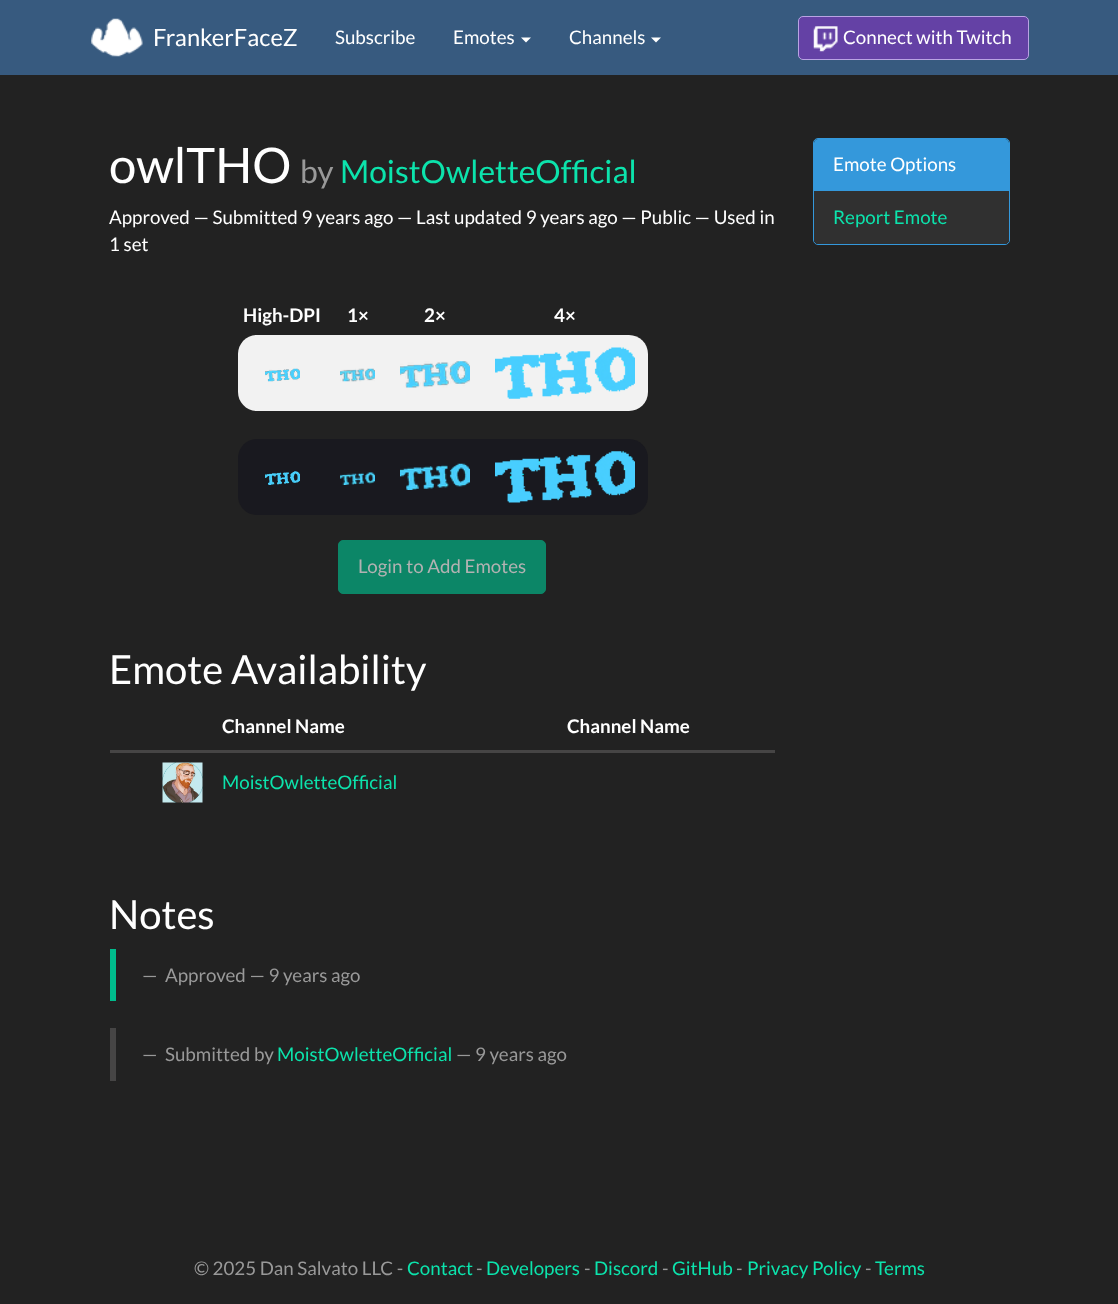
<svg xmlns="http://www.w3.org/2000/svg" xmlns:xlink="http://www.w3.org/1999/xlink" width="1118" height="1304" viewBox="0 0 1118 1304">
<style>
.cls-1{font:23.75px Lato;fill:#ffffff}
.cls-2{font:18.75px Lato;fill:#ffffff}
.cls-3{font:49px Lato;fill:#ffffff}
.cls-4{font:31.75px Lato;fill:#999999}
.cls-5{font:31.75px Lato;fill:#0ce3ac}
.cls-6{font:bold 18.75px Lato;fill:#ffffff}
.cls-7{font:18.75px Lato;fill:#b2b2b2}
.cls-8{font:40px Lato;fill:#ffffff}
.cls-9{font:18.75px Lato;fill:#0ce3ac}
.cls-10{font:18.75px Lato;fill:#999999}
</style>
<rect width="100%" height="100%" fill="#222222"/>
<rect fill="#375a7f" x="0" y="0" width="1118" height="75"/>
<image xlink:href="image0.png" x="91" y="18" width="52" height="39"/>
<path fill="#ffffff" d="M521 37.5H531L526 42.5Z"/>
<path fill="#ffffff" d="M651 37.5H661L656 42.5Z"/>
<rect fill="#6441a5" stroke="#b9a3e3" x="798.5" y="16.5" width="230" height="43" rx="4.5"/>
<image xlink:href="image1.png" x="813" y="26" width="25" height="26"/>
<path fill="#f2f2f2" d="M257 335H328V411H257C246.5 411 238 402.5 238 392V354C238 343.5 246.5 335 257 335Z"/>
<image xlink:href="image2.png" x="265" y="368" width="35" height="14"/>
<rect fill="#f2f2f2" x="328" y="335" width="155" height="76"/>
<image xlink:href="image3.png" x="340" y="368" width="35" height="14"/>
<path fill="#f2f2f2" d="M483 335H629C639.5 335 648 343.5 648 354V392C648 402.5 639.5 411 629 411H483Z"/>
<image xlink:href="image4.png" x="495" y="347" width="140" height="52"/>
<image xlink:href="image5.png" x="400" y="361" width="70" height="27"/>
<path fill="#19191f" d="M257 439H328V515H257C246.5 515 238 506.5 238 496V458C238 447.5 246.5 439 257 439Z"/>
<image xlink:href="image6.png" x="265" y="471" width="35" height="14"/>
<rect fill="#19191f" x="328" y="439" width="155" height="76"/>
<image xlink:href="image7.png" x="340" y="472" width="35" height="13"/>
<path fill="#19191f" d="M483 439H629C639.5 439 648 447.5 648 458V496C648 506.5 639.5 515 629 515H483Z"/>
<image xlink:href="image8.png" x="495" y="451" width="140" height="52"/>
<image xlink:href="image9.png" x="400" y="463" width="70" height="27"/>
<rect fill="#0c8667" stroke="#0c8667" x="338.5" y="540.5" width="207" height="53" rx="4.5"/>
<rect fill="#464545" x="110" y="750" width="665" height="3"/>
<image xlink:href="image10.png" x="162" y="762" width="41" height="41"/>
<rect fill="#00bc8c" x="110" y="949" width="6" height="52"/>
<rect fill="#464545" x="110" y="1028" width="6" height="53"/>
<rect fill="none" stroke="#3498db" x="813.5" y="138.5" width="196" height="106" rx="4.5"/>
<path fill="#3498db" d="M818 139H1005C1007 139 1009 141 1009 143V191H814V143C814 141 816 139 818 139Z"/>
<path fill="#303030" d="M814 191H1009V240C1009 242 1007 244 1005 244H818C816 244 814 242 814 240Z"/>
<text class="cls-1" x="153" y="46">FrankerFaceZ</text>
<text class="cls-2" x="335" y="44">Subscribe</text>
<text class="cls-2" x="453" y="44">Emotes</text>
<text class="cls-2" x="569" y="44">Channels</text>
<text class="cls-2" x="843" y="44">Connect with Twitch</text>
<text class="cls-3" x="109" y="183">owlTHO</text>
<text class="cls-4" x="300" y="183">by</text>
<text class="cls-5" x="340" y="183">MoistOwletteOfficial</text>
<text class="cls-2"><tspan x="109" y="224">Approved — Submitted 9 years ago — Last updated 9 years ago — Public — Used in</tspan><tspan x="109" y="251">1 set</tspan></text>
<text class="cls-6" x="243" y="322">High-DPI</text>
<text class="cls-6" x="347" y="322">1×</text>
<text class="cls-6" x="424" y="322">2×</text>
<text class="cls-6" x="554" y="322">4×</text>
<text class="cls-7" x="358" y="573">Login to Add Emotes</text>
<text class="cls-8" x="109" y="684">Emote Availability</text>
<text class="cls-6" x="222" y="733">Channel Name</text>
<text class="cls-6" x="567" y="733">Channel Name</text>
<text class="cls-9" x="222" y="789">MoistOwletteOfficial</text>
<text class="cls-8" x="109" y="929">Notes</text>
<text class="cls-10" x="142" y="982">—</text>
<text class="cls-10" x="165" y="982">Approved — 9 years ago</text>
<text class="cls-10" x="142" y="1061">—</text>
<text class="cls-10" x="165" y="1061">Submitted by</text>
<text class="cls-9" x="277" y="1061">MoistOwletteOfficial</text>
<text class="cls-10" x="456" y="1061">— 9 years ago</text>
<text class="cls-2" x="833" y="171">Emote Options</text>
<text class="cls-9" x="833" y="224">Report Emote</text>
<text class="cls-10" x="194" y="1275">© 2025 Dan Salvato LLC -</text>
<text class="cls-9" x="407" y="1275">Contact</text>
<text class="cls-10" x="476" y="1275">-</text>
<text class="cls-9" x="486" y="1275">Developers</text>
<text class="cls-10" x="584" y="1275">-</text>
<text class="cls-9" x="594" y="1275">Discord</text>
<text class="cls-10" x="662" y="1275">-</text>
<text class="cls-9" x="672" y="1275">GitHub</text>
<text class="cls-10" x="736" y="1275">-</text>
<text class="cls-9" x="747" y="1275">Privacy Policy</text>
<text class="cls-10" x="865" y="1275">-</text>
<text class="cls-9" x="875" y="1275">Terms</text>
</svg>
